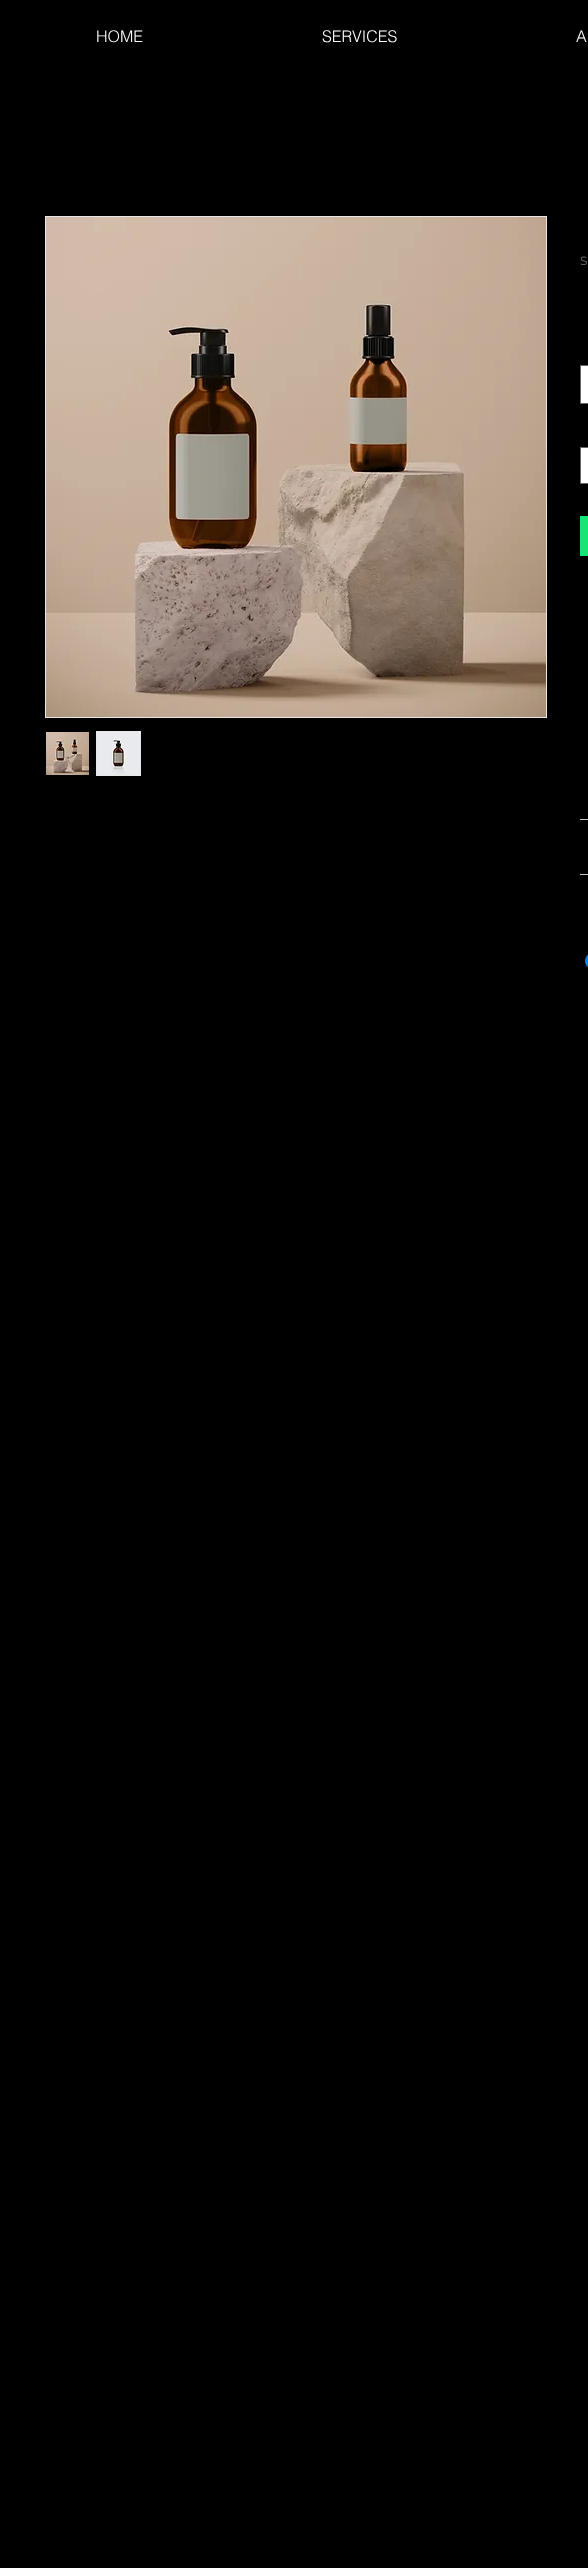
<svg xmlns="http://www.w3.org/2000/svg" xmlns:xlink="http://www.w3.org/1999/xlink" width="588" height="2568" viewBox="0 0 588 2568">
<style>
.cls-1{font:300 16px helvetica;fill:#ffffff}
.cls-2{font:12px Montserrat;fill:#757575}
</style>
<rect width="100%" height="100%" fill="#000000"/>
<rect fill="none" stroke="#e8e6e6" x="45.5" y="216.5" width="501" height="501"/>
<image xlink:href="image0.png" x="46" y="217" width="500" height="500"/>
<image xlink:href="image1.png" x="46" y="732" width="43" height="43"/>
<rect fill="#e8e6e6" x="96" y="731" width="45" height="45"/>
<image xlink:href="image2.png" x="97" y="732" width="43" height="43"/>
<rect fill="#ffffff" stroke="#666666" x="580.5" y="365.5" width="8" height="38"/>
<rect fill="#ffffff" stroke="#666666" x="580.5" y="447.5" width="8" height="36"/>
<rect fill="#19e577" x="580" y="516" width="8" height="40"/>
<rect fill="#c7c7c7" x="580" y="819" width="8" height="1"/>
<rect fill="#c7c7c7" x="580" y="874" width="8" height="1"/>
<image xlink:href="image3.png" x="585" y="954" width="3" height="14"/>
<text class="cls-1" x="96" y="42">HOME</text>
<text class="cls-1" x="322" y="42">SERVICES</text>
<text class="cls-1" x="576" y="42">A</text>
<text class="cls-2" x="580" y="265">S</text>
</svg>
